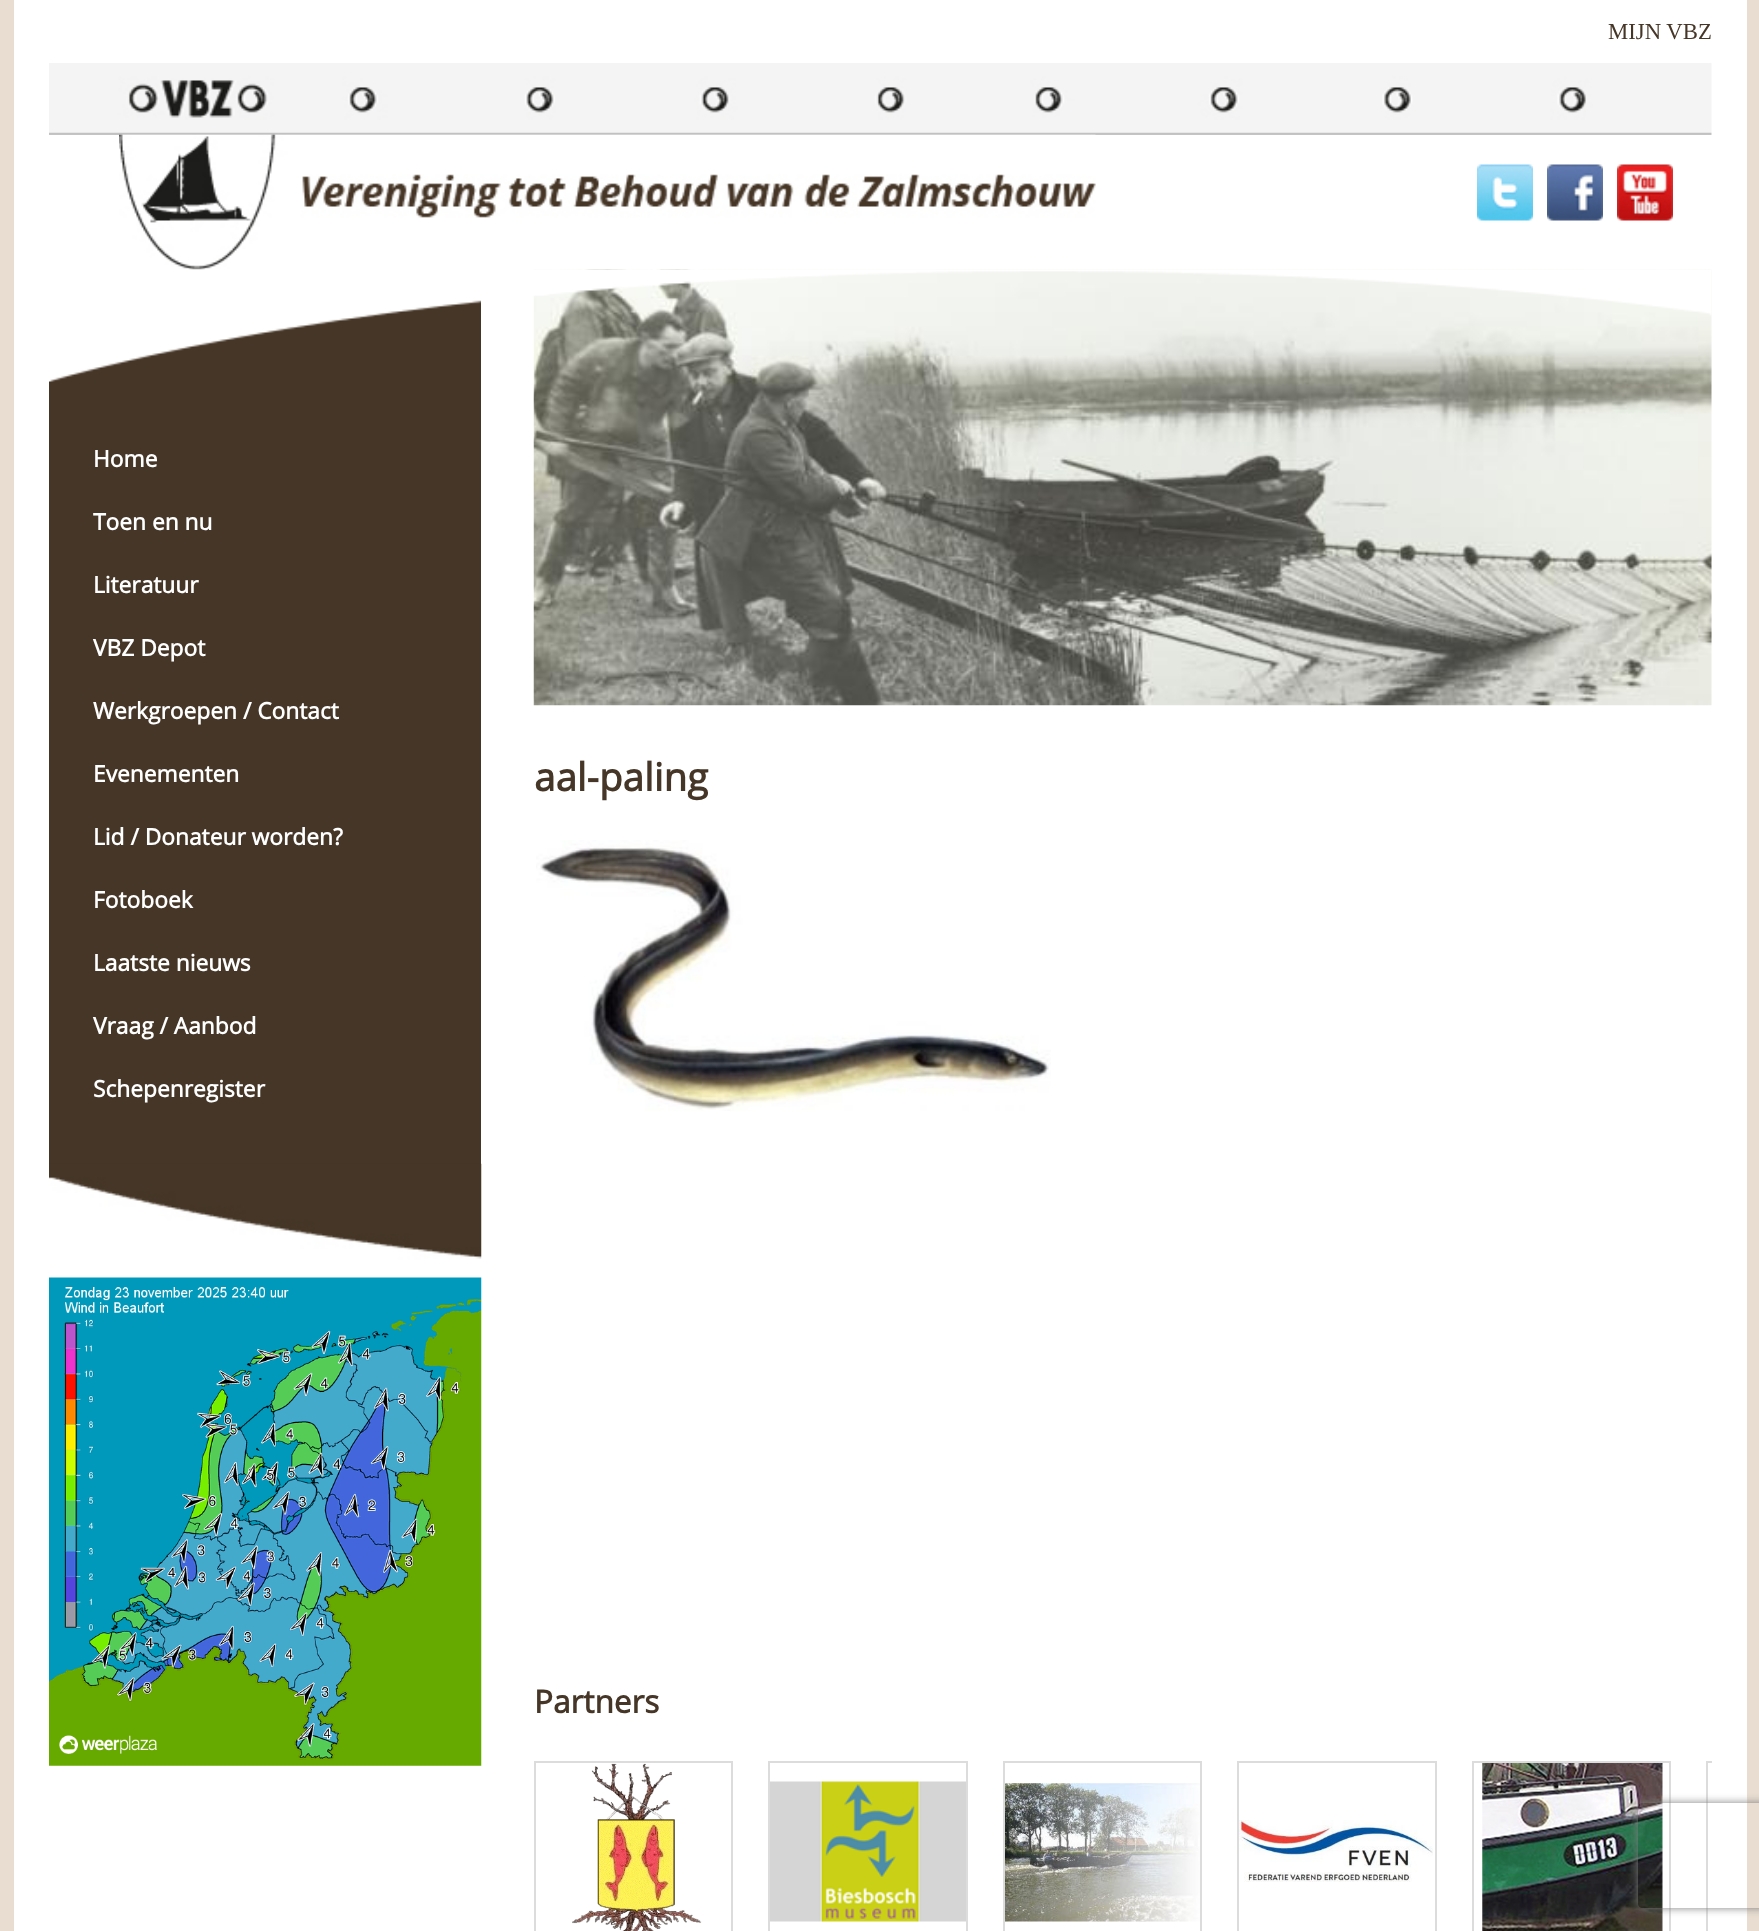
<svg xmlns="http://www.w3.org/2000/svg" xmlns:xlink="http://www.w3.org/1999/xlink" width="1759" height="1931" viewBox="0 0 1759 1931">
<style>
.cls-1{font:22.75px Liberation Serif;fill:#463627}
.cls-2{font:bold 22.75px Open Sans;fill:#ffffff}
.cls-3{font:bold 38.5px Open Sans;fill:#463627}
.cls-4{font:bold 31.5px Open Sans;fill:#463627}
</style>
<defs>
<clipPath id="clip1"><rect x="534" y="1761" width="1178" height="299"/></clipPath>
<clipPath id="clip2"><path d="M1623 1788H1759V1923H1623ZM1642 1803H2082C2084 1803 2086 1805 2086 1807V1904C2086 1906 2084 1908 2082 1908H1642C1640 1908 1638 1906 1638 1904V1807C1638 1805 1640 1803 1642 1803Z" clip-rule="evenodd"/></clipPath>
</defs>
<rect width="100%" height="100%" fill="#e9ddd1"/>
<rect fill="#ffffff" x="14" y="0" width="1733" height="1931"/>
<image xlink:href="image0.png" x="49" y="63" width="1663" height="72"/>
<image xlink:href="image1.png" x="119" y="134" width="977" height="136"/>
<image xlink:href="image2.png" x="1477" y="164" width="56" height="57"/>
<image xlink:href="image3.png" x="1547" y="164" width="56" height="57"/>
<image xlink:href="image4.png" x="1617" y="164" width="56" height="57"/>
<rect fill="#463627" x="49" y="300" width="432" height="864"/>
<image xlink:href="image8.png" x="533" y="269" width="1179" height="437"/>
<image xlink:href="image5.png" x="49" y="269" width="1663" height="113"/>
<image xlink:href="image6.png" x="49" y="1163" width="433" height="97"/>
<image xlink:href="image7.png" x="49" y="1277" width="433" height="489"/>
<image xlink:href="image9.png" x="536" y="840" width="515" height="271"/>
<image xlink:href="image10.png" x="572" y="1763" width="130" height="168"/>
<rect fill="none" stroke="#dcdcdc" stroke-width="2" x="535" y="1762" width="197" height="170"/>
<image xlink:href="image11.png" x="770" y="1781" width="196" height="141"/>
<rect fill="none" stroke="#dcdcdc" stroke-width="2" x="769" y="1762" width="198" height="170"/>
<image xlink:href="image12.png" x="1005" y="1783" width="195" height="139"/>
<rect fill="none" stroke="#dcdcdc" stroke-width="2" x="1004" y="1762" width="197" height="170"/>
<image xlink:href="image13.png" x="1239" y="1820" width="194" height="62"/>
<rect fill="none" stroke="#dcdcdc" stroke-width="2" x="1238" y="1762" width="198" height="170"/>
<image xlink:href="image14.png" x="1482" y="1763" width="181" height="168"/>
<rect fill="none" stroke="#dcdcdc" stroke-width="2" x="1473" y="1762" width="197" height="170"/>
<g clip-path="url(#clip1)">
<rect fill="none" stroke="#dcdcdc" stroke-width="2" x="1707" y="1762" width="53" height="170"/>
</g>
<g clip-path="url(#clip2)">
<rect fill="#808080" filter="blur(4.5px)" x="1638" y="1803" width="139" height="105" rx="4"/>
</g>
<text class="cls-1" x="1608" y="39">MIJN VBZ</text>
<text class="cls-2" x="93" y="467">Home</text>
<text class="cls-2" x="93" y="530">Toen en nu</text>
<text class="cls-2" x="93" y="593">Literatuur</text>
<text class="cls-2" x="93" y="656">VBZ Depot</text>
<text class="cls-2" x="93" y="719">Werkgroepen / Contact</text>
<text class="cls-2" x="93" y="782">Evenementen</text>
<text class="cls-2" x="93" y="845">Lid / Donateur worden?</text>
<text class="cls-2" x="93" y="908">Fotoboek</text>
<text class="cls-2" x="93" y="971">Laatste nieuws</text>
<text class="cls-2" x="93" y="1034">Vraag / Aanbod</text>
<text class="cls-2" x="93" y="1097">Schepenregister</text>
<text class="cls-3" x="534" y="791">aal-paling</text>
<text class="cls-4" x="534" y="1713">Partners</text>
</svg>
